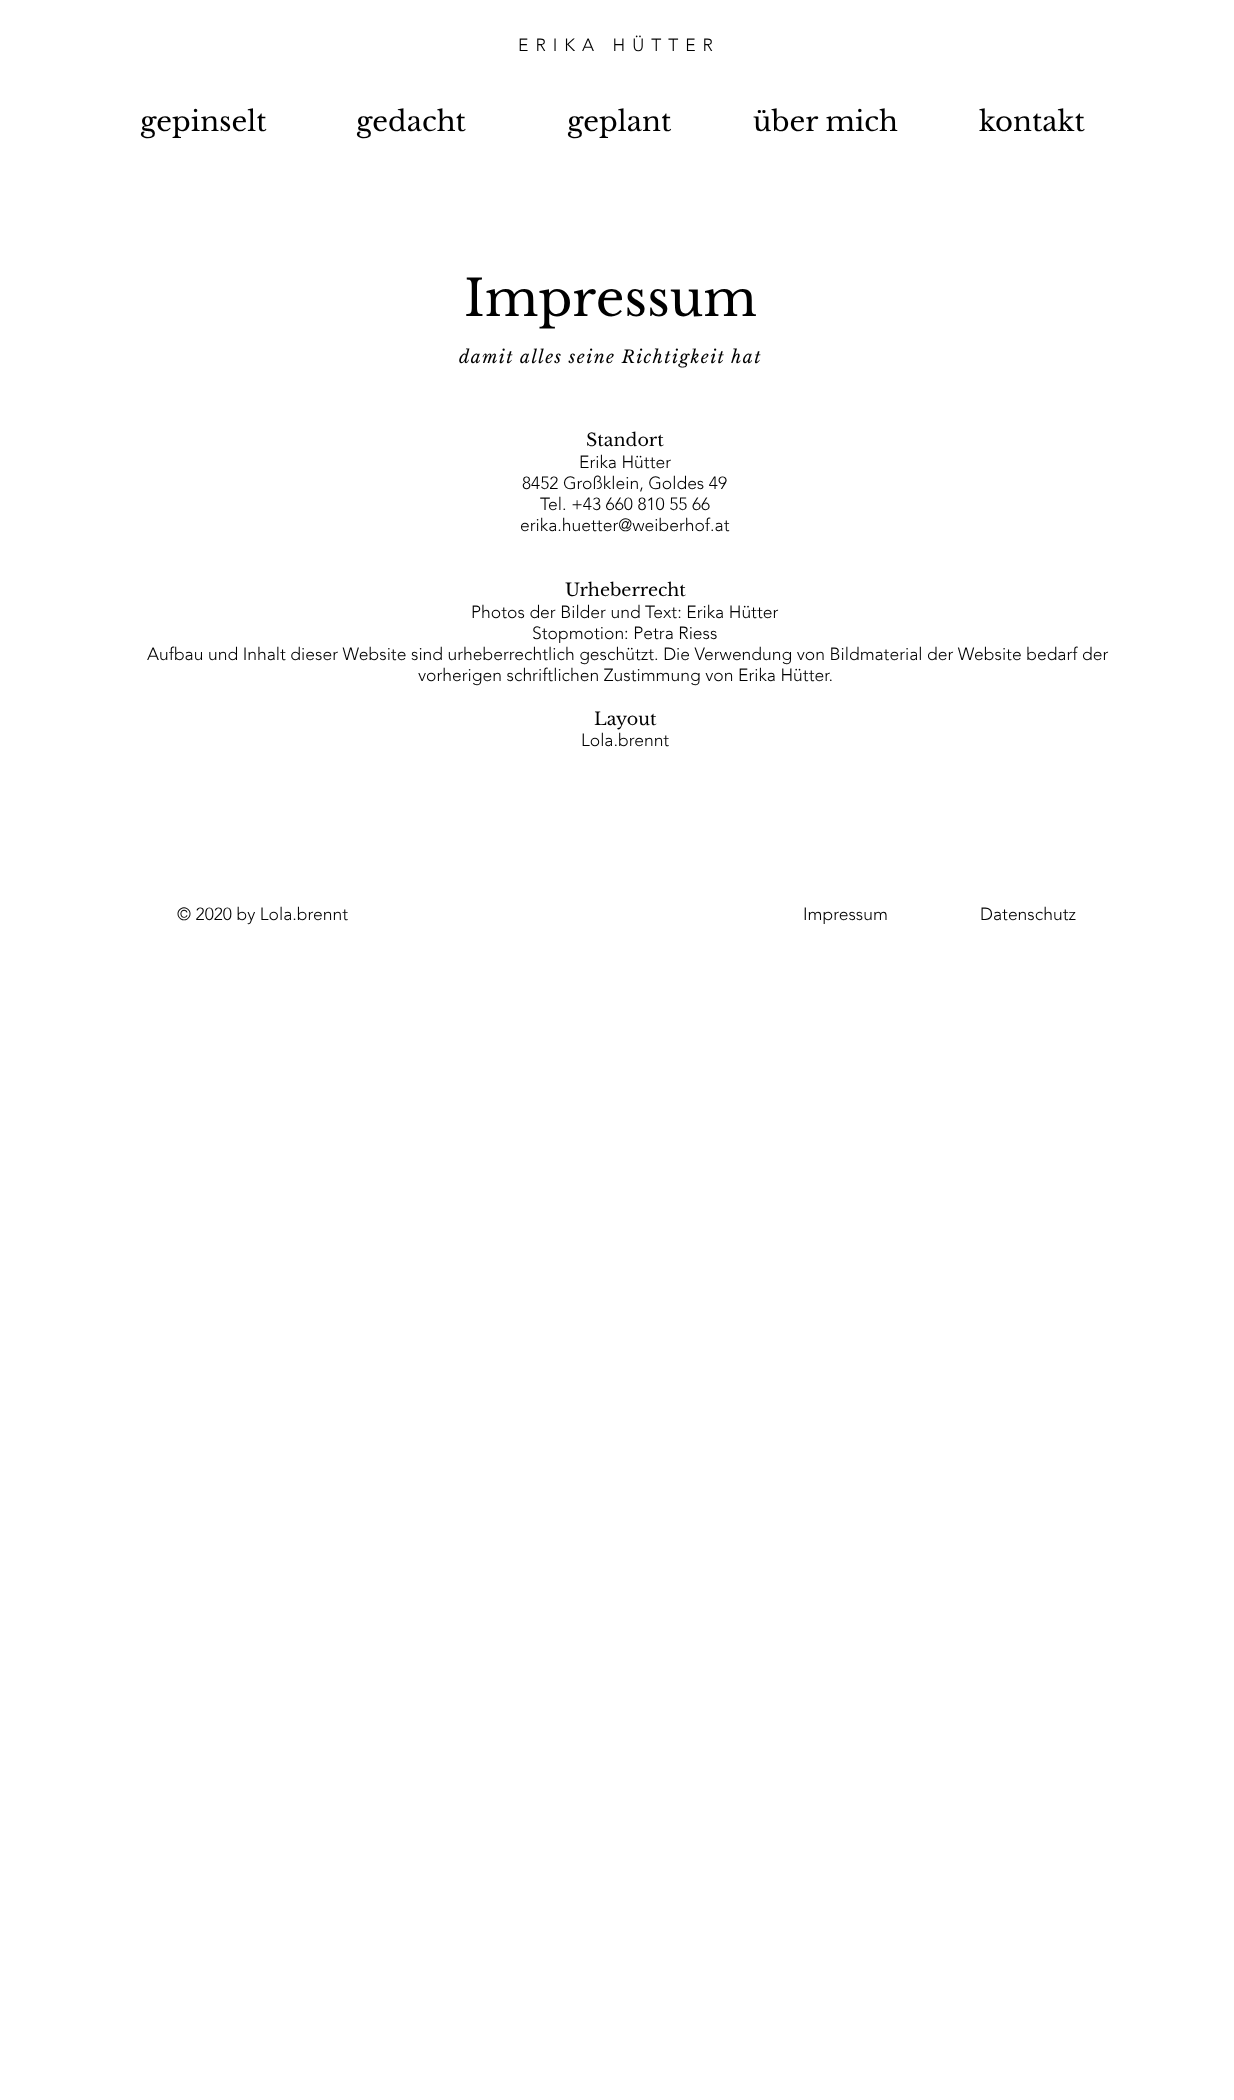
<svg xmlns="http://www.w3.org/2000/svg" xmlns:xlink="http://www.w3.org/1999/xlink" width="1234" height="2100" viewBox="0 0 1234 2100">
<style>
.cls-1{font:300 17.5px 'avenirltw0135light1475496';letter-spacing:7px;fill:#000000}
.cls-2{font:27.5px Libre Baskerville;fill:#000000}
.cls-3{font:50px Libre Baskerville;fill:#000000}
.cls-4{font:italic 17.5px Libre Baskerville;letter-spacing:1.4px;fill:#000000}
.cls-5{font:17.5px Libre Baskerville;fill:#000000}
.cls-6{font:300 17.5px 'avenirltw0135light1475496';fill:#000000}
</style>
<rect width="100%" height="100%" fill="#ffffff"/>
<text class="cls-1" x="518" y="51">ERIKA HÜTTER</text>
<text class="cls-2" x="140" y="131">gepinselt</text>
<text class="cls-2" x="356" y="131">gedacht</text>
<text class="cls-2" x="567" y="131">geplant</text>
<text class="cls-2" x="753" y="131">über mich</text>
<text class="cls-2" x="979" y="131">kontakt</text>
<text class="cls-3" x="464" y="316">Impressum</text>
<text class="cls-4" x="459" y="363">damit alles seine Richtigkeit hat</text>
<text class="cls-5" x="586" y="446">Standort</text>
<text class="cls-6" x="579" y="468">Erika Hütter</text>
<text class="cls-6" x="522" y="489">8452 Großklein, Goldes 49</text>
<text class="cls-6" x="540" y="510">Tel. +43 660 810 55 66</text>
<text class="cls-6" x="520" y="531">erika.huetter@weiberhof.at</text>
<text class="cls-5" x="565" y="596">Urheberrecht</text>
<text class="cls-6" x="471" y="618">Photos der Bilder und Text: Erika Hütter</text>
<text class="cls-6" x="532" y="639">Stopmotion: Petra Riess</text>
<text class="cls-6" x="147" y="660">Aufbau und Inhalt dieser Website sind urheberrechtlich geschützt. Die Verwendung von Bildmaterial der Website bedarf der</text>
<text class="cls-6" x="418" y="681">vorherigen schriftlichen Zustimmung von Erika Hütter.</text>
<text class="cls-5" x="594" y="725">Layout</text>
<text class="cls-6" x="581" y="746">Lola.brennt</text>
<text class="cls-6" x="177" y="920">© 2020 by Lola.brennt</text>
<text class="cls-6" x="803" y="920">Impressum</text>
<text class="cls-6" x="980" y="920">Datenschutz</text>
</svg>
